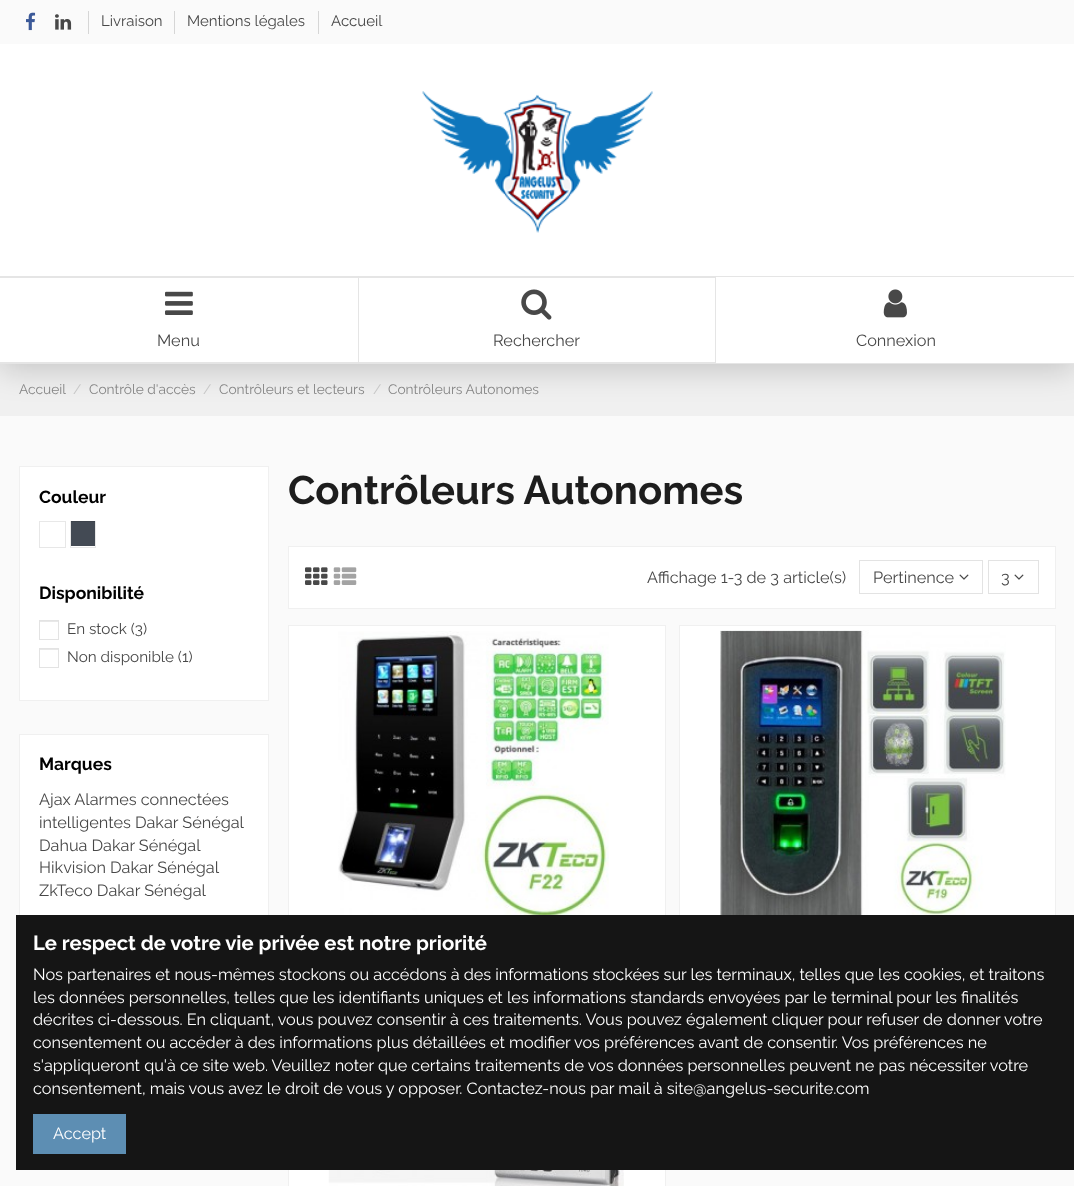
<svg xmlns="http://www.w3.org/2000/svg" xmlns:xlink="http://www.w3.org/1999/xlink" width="1074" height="1186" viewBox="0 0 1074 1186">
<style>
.cls-1{font:15px Raleway;fill:#484848}
.cls-2{font:16.25px Raleway;fill:#484848}
.cls-3{font:13.75px Raleway;fill:#858585}
.cls-4{font:13.75px Raleway;fill:#c5c5c5}
.cls-5{font:bold 17.5px Raleway;fill:#000000}
.cls-6{font:15.25px Raleway;fill:#484848}
.cls-7{font:bold 40px Raleway;fill:#1d1d1d}
.cls-8{font:bold 20.3px Raleway;fill:#ffffff}
.cls-9{font:16.25px Raleway;fill:#ffffff}
</style>
<defs>
<clipPath id="clip1"><rect x="39" y="521" width="210" height="45"/></clipPath>
</defs>
<rect width="100%" height="100%" fill="#fafafa"/>
<rect fill="#f0f0f0" x="0" y="364" width="1074" height="52"/>
<rect fill="#000000" fill-opacity="0.18" filter="blur(15.5px)" x="0" y="6" width="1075" height="364"/>
<rect fill="#ffffff" x="0" y="44" width="1074" height="320"/>
<rect fill="#fafafa" x="0" y="0" width="1074" height="44"/>
<image xlink:href="image0.png" x="26" y="12" width="10" height="19"/>
<image xlink:href="image1.png" x="55" y="14" width="17" height="16"/>
<rect fill="#d6d6d6" x="88" y="11" width="1" height="23"/>
<rect fill="#d6d6d6" x="174" y="11" width="1" height="23"/>
<rect fill="#d6d6d6" x="318" y="11" width="1" height="23"/>
<image xlink:href="image2.png" x="422" y="91" width="231" height="142"/>
<path fill="#e5e5e5" d="M0 276H359L358 278H0Z"/>
<path fill="#151515" fill-opacity="0.11" d="M359 276V364L358 362V278Z"/>
<path fill="#151515" fill-opacity="0.11" d="M359 364H0V362H358Z"/>
<image xlink:href="image3.png" x="165" y="291" width="28" height="24"/>
<path fill="#e5e5e5" d="M359 276H716L715 278H359Z"/>
<path fill="#151515" fill-opacity="0.11" d="M716 276V364L715 362V278Z"/>
<path fill="#151515" fill-opacity="0.11" d="M716 364H359V362H715Z"/>
<image xlink:href="image4.png" x="521" y="289" width="31" height="31"/>
<rect fill="#e5e5e5" x="716" y="276" width="358" height="1"/>
<rect fill="#e5e5e5" x="716" y="363" width="358" height="1"/>
<image xlink:href="image5.png" x="883" y="289" width="24" height="29"/>
<rect fill="#ffffff" stroke="#f0f0f0" x="19.5" y="466.5" width="249" height="234"/>
<rect fill="#e8e8e8" x="40" y="521" width="25" height="1"/>
<g clip-path="url(#clip1)">
<rect fill="none" stroke="#e7e7e7" x="39.5" y="520.5" width="26" height="27"/>
</g>
<rect fill="#434a54" x="71" y="522" width="24" height="24"/>
<rect fill="#3d434c" x="71" y="521" width="24" height="1"/>
<g clip-path="url(#clip1)">
<rect fill="none" stroke="#e7e7e7" x="70.5" y="520.5" width="25" height="27"/>
</g>
<rect fill="#e8e8e8" x="40" y="621" width="18" height="1"/>
<rect fill="none" stroke="#e3e3e3" x="39.5" y="620.5" width="19" height="19"/>
<rect fill="#e8e8e8" x="40" y="649" width="18" height="1"/>
<rect fill="none" stroke="#e3e3e3" x="39.5" y="648.5" width="19" height="19"/>
<rect fill="#ffffff" x="20" y="735" width="248" height="180"/>
<rect fill="none" stroke="#f0f0f0" x="19.5" y="734.5" width="249" height="188"/>
<rect fill="#ffffff" stroke="#f0f0f0" x="288.5" y="546.5" width="767" height="62"/>
<image xlink:href="image6.png" x="305" y="567" width="23" height="18"/>
<image xlink:href="image7.png" x="333" y="567" width="24" height="18"/>
<rect fill="none" stroke="#e3e3e3" x="859.5" y="560.5" width="123" height="33"/>
<image xlink:href="image8.png" x="959" y="574" width="10" height="6"/>
<rect fill="none" stroke="#e3e3e3" x="988.5" y="560.5" width="50" height="33"/>
<image xlink:href="image8.png" x="1014" y="574" width="10" height="6"/>
<rect fill="#ffffff" x="289" y="626" width="376" height="289"/>
<rect fill="none" stroke="#f0f0f0" x="288.5" y="625.5" width="377" height="422"/>
<image xlink:href="image9.png" x="338" y="631" width="271" height="284"/>
<rect fill="#ffffff" x="680" y="626" width="375" height="289"/>
<rect fill="none" stroke="#f0f0f0" x="679.5" y="625.5" width="376" height="422"/>
<image xlink:href="image10.png" x="720" y="630" width="286" height="285"/>
<rect fill="#ffffff" x="289" y="1170" width="376" height="16"/>
<rect fill="none" stroke="#f0f0f0" x="288.5" y="1060.5" width="377" height="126"/>
<image xlink:href="image11.png" x="328" y="1170" width="296" height="16"/>
<rect fill="#151515" x="16" y="915" width="1058" height="255"/>
<rect fill="#5d8eb3" x="33" y="1114" width="93" height="40"/>
<text class="cls-1" x="101" y="26">Livraison</text>
<text class="cls-1" x="187" y="26">Mentions légales</text>
<text class="cls-1" x="331" y="26">Accueil</text>
<text class="cls-2" x="157" y="346">Menu</text>
<text class="cls-2" x="493" y="346">Rechercher</text>
<text class="cls-2" x="856" y="346">Connexion</text>
<text class="cls-3" x="19" y="394">Accueil</text>
<text class="cls-4" x="73" y="394">/</text>
<text class="cls-3" x="89" y="394">Contrôle d'accès</text>
<text class="cls-4" x="203" y="394">/</text>
<text class="cls-3" x="219" y="394">Contrôleurs et lecteurs</text>
<text class="cls-4" x="373" y="394">/</text>
<text class="cls-3" x="388" y="394">Contrôleurs Autonomes</text>
<text class="cls-5" x="39" y="503">Couleur</text>
<text class="cls-5" x="39" y="599">Disponibilité</text>
<text class="cls-6"><tspan x="67" y="634">En stock (3)</tspan><tspan x="67" y="662">Non disponible (1)</tspan></text>
<text class="cls-5" x="39" y="770">Marques</text>
<text class="cls-2"><tspan x="39" y="805">Ajax Alarmes connectées</tspan><tspan x="39" y="828">intelligentes Dakar Sénégal</tspan><tspan x="39" y="851">Dahua Dakar Sénégal</tspan><tspan x="39" y="873">Hikvision Dakar Sénégal</tspan><tspan x="39" y="896">ZkTeco Dakar Sénégal</tspan></text>
<text class="cls-7" x="288" y="504">Contrôleurs Autonomes</text>
<text class="cls-2" x="647" y="583">Affichage 1-3 de 3 article(s)</text>
<text class="cls-2" x="873" y="583">Pertinence</text>
<text class="cls-2" x="1001" y="583">3</text>
<text class="cls-8" x="33" y="950">Le respect de votre vie privée est notre priorité</text>
<text class="cls-9"><tspan x="33" y="980">Nos partenaires et nous-mêmes stockons ou accédons à des informations stockées sur les terminaux, telles que les cookies, et traitons</tspan><tspan x="33" y="1003">les données personnelles, telles que les identifiants uniques et les informations standards envoyées par le terminal pour les finalités</tspan><tspan x="33" y="1025">décrites ci-dessous. En cliquant, vous pouvez consentir à ces traitements. Vous pouvez également cliquer pour refuser de donner votre</tspan><tspan x="33" y="1048">consentement ou accéder à des informations plus détaillées et modifier vos préférences avant de consentir. Vos préférences ne</tspan><tspan x="33" y="1071">s'appliqueront qu'à ce site web. Veuillez noter que certains traitements de vos données personnelles peuvent ne pas nécessiter votre</tspan><tspan x="33" y="1094">consentement, mais vous avez le droit de vous y opposer. Contactez-nous par mail à site@angelus-securite.com</tspan></text>
<text class="cls-9" x="53" y="1139">Accept</text>
</svg>
